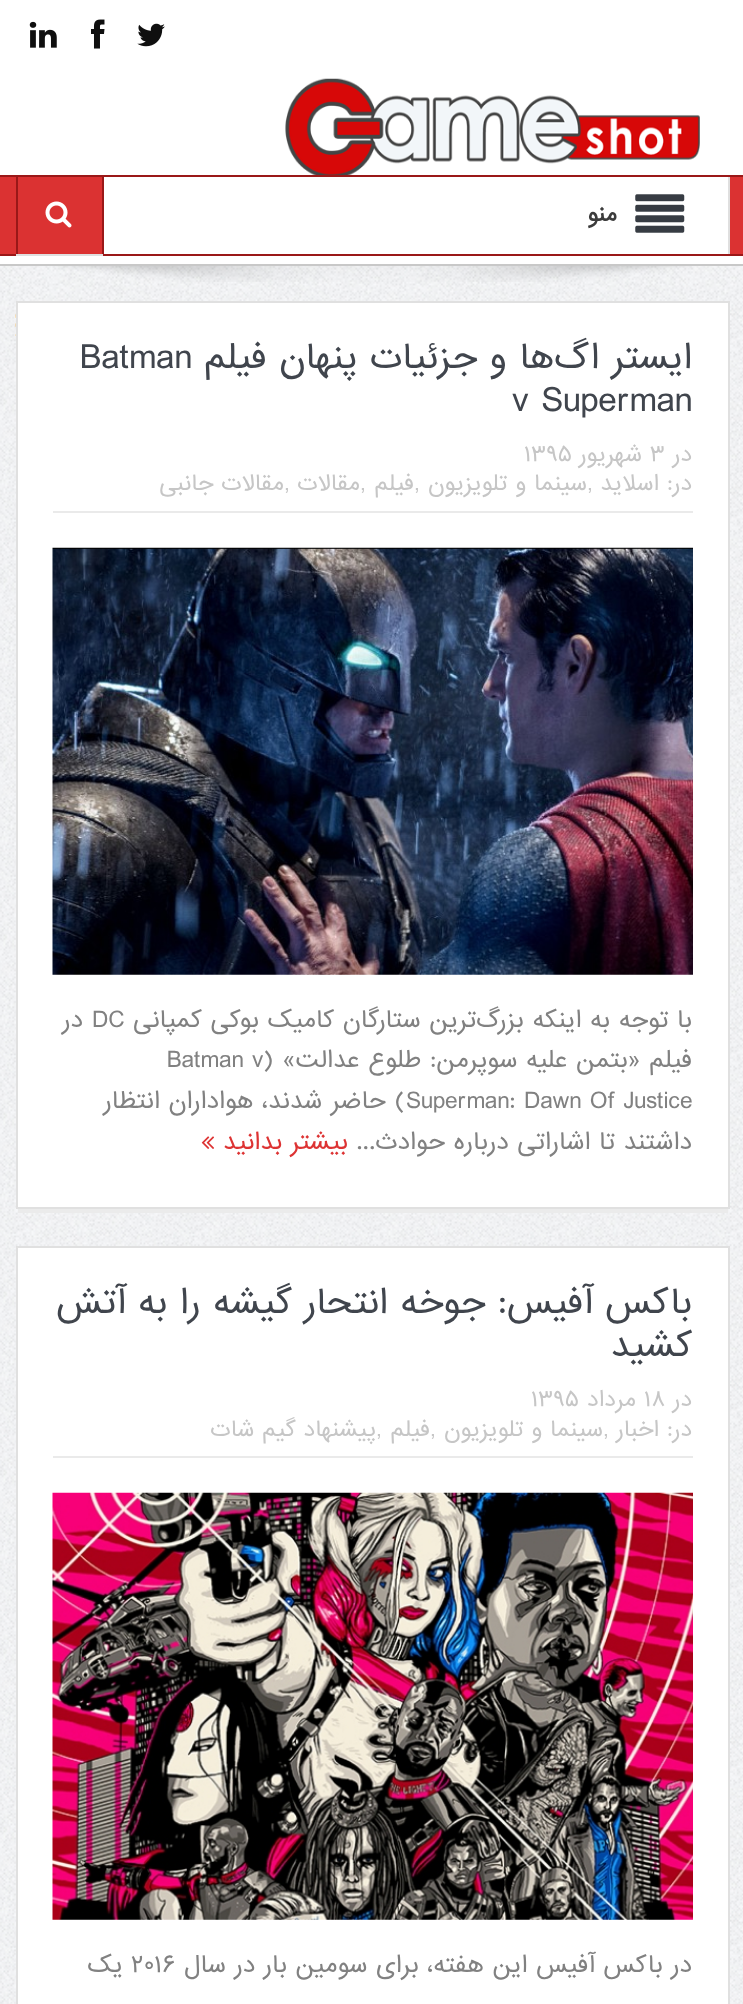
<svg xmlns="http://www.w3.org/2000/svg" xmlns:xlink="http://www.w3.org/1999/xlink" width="743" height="2004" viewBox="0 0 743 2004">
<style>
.cls-1{font:bold 21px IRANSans;direction:rtl;fill:#3c3c3c}
.cls-2{font:33.25px IRANSans;direction:rtl;fill:#40454d}
.cls-3{font:33.25px IRANSans;fill:#40454d}
.cls-4{font:21px IRANSans;direction:rtl;fill:#c6c6c6}
.cls-5{font:21px IRANSans;fill:#c6c6c6}
.cls-6{font:22.75px IRANSans;direction:rtl;fill:#818181}
.cls-7{font:22.75px IRANSans;fill:#818181}
.cls-8{font:22.75px IRANSans;direction:rtl;fill:#dd3333}
</style>
<rect width="100%" height="100%" fill="#ffffff"/>
<image xlink:href="image0.png" x="0" y="266" width="743" height="1738"/>
<image xlink:href="image1.png" x="137" y="23" width="28" height="24"/>
<image xlink:href="image2.png" x="91" y="19" width="14" height="30"/>
<image xlink:href="image3.png" x="29" y="21" width="28" height="27"/>
<image xlink:href="image4.png" x="285" y="78" width="415" height="97"/>
<rect fill="#9a1818" x="0" y="175" width="743" height="2"/>
<rect fill="#c8c8c8" x="0" y="264" width="743" height="2"/>
<rect fill="#db3232" x="0" y="177" width="743" height="77"/>
<rect fill="#9a1818" x="0" y="254" width="743" height="2"/>
<rect fill="#ffffff" x="104" y="177" width="624" height="77"/>
<rect fill="#dfdfdf" x="728" y="177" width="2" height="77"/>
<image xlink:href="image5.png" x="635" y="194" width="50" height="39"/>
<rect fill="#dfdfdf" x="16" y="254" width="87" height="2"/>
<rect fill="#9a1818" x="102" y="177" width="2" height="77"/>
<rect fill="#9a1818" x="16" y="177" width="2" height="77"/>
<image xlink:href="image6.png" x="45" y="201" width="27" height="27"/>
<image xlink:href="image7.png" x="54" y="266" width="638" height="16"/>
<image xlink:href="image8.png" x="15" y="314" width="1" height="22"/>
<rect fill="#ffffff" stroke="#e0e0e0" stroke-width="2" x="17" y="302" width="712" height="906"/>
<rect fill="#eaeaea" x="53" y="511" width="640" height="2"/>
<image xlink:href="image9.png" x="52" y="547" width="641" height="428"/>
<image xlink:href="image10.png" x="201" y="1136" width="13" height="13"/>
<rect fill="#ebebeb" x="18" y="1209" width="710" height="4"/>
<rect fill="#ffffff" stroke="#e0e0e0" stroke-width="2" x="17" y="1247" width="712" height="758"/>
<rect fill="#eaeaea" x="53" y="1456" width="640" height="2"/>
<image xlink:href="image11.png" x="52" y="1492" width="641" height="428"/>
<text class="cls-1" x="617" y="221">منو</text>
<text class="cls-2" x="692" y="368">ایستر اگ‌ها و جزئیات پنهان فیلم</text>
<text class="cls-3" x="80" y="368">Batman</text>
<text class="cls-3" x="512" y="411">v Superman</text>
<text class="cls-4" x="692" y="461">در</text>
<text class="cls-5" x="650" y="461">۳</text>
<text class="cls-4" x="642" y="461">شهریور</text>
<text class="cls-5" x="524" y="461">۱۳۹۵</text>
<text class="cls-4" x="692" y="490">در:</text>
<text class="cls-4" x="659" y="490">اسلاید</text>
<text class="cls-5" x="587" y="490">,</text>
<text class="cls-4" x="587" y="490">سینما و تلویزیون</text>
<text class="cls-5" x="414" y="490">,</text>
<text class="cls-4" x="414" y="490">فیلم</text>
<text class="cls-5" x="360" y="490">,</text>
<text class="cls-4" x="360" y="490">مقالات</text>
<text class="cls-5" x="284" y="490">,</text>
<text class="cls-4" x="284" y="490">مقالات جانبی</text>
<text class="cls-6" x="692" y="1027">با توجه به اینکه بزرگ‌ترین ستارگان کامیک‌ بوکی کمپانی</text>
<text class="cls-7" x="92" y="1027">DC</text>
<text class="cls-6" x="83" y="1027">در</text>
<text class="cls-6" x="692" y="1067">فیلم «بتمن علیه سوپرمن: طلوع عدالت» (</text>
<text class="cls-7" x="167" y="1067">Batman v</text>
<text class="cls-7" x="406" y="1108">Superman: Dawn Of Justice</text>
<text class="cls-6" x="406" y="1108">) حاضر شدند، هواداران انتظار</text>
<text class="cls-6" x="692" y="1149">داشتند تا اشاراتی درباره حوادث...</text>
<text class="cls-8" x="348" y="1149">بیشتر بدانید</text>
<text class="cls-2"><tspan x="692" y="1313">باکس آفیس: جوخه انتحار گیشه را به آتش</tspan><tspan x="692" y="1356">کشید</tspan></text>
<text class="cls-4" x="692" y="1406">در</text>
<text class="cls-5" x="644" y="1406">۱۸</text>
<text class="cls-4" x="636" y="1406">مرداد</text>
<text class="cls-5" x="531" y="1406">۱۳۹۵</text>
<text class="cls-4" x="692" y="1436">در:</text>
<text class="cls-4" x="659" y="1436">اخبار</text>
<text class="cls-5" x="603" y="1436">,</text>
<text class="cls-4" x="603" y="1436">سینما و تلویزیون</text>
<text class="cls-5" x="430" y="1436">,</text>
<text class="cls-4" x="430" y="1436">فیلم</text>
<text class="cls-5" x="376" y="1436">,</text>
<text class="cls-4" x="376" y="1436">پیشنهاد گیم شات</text>
<text class="cls-6" x="692" y="1972">در باکس آفیس این هفته، برای سومین بار در سال</text>
<text class="cls-7" x="131" y="1972">۲۰۱۶</text>
<text class="cls-6" x="123" y="1972">یک</text>
</svg>
